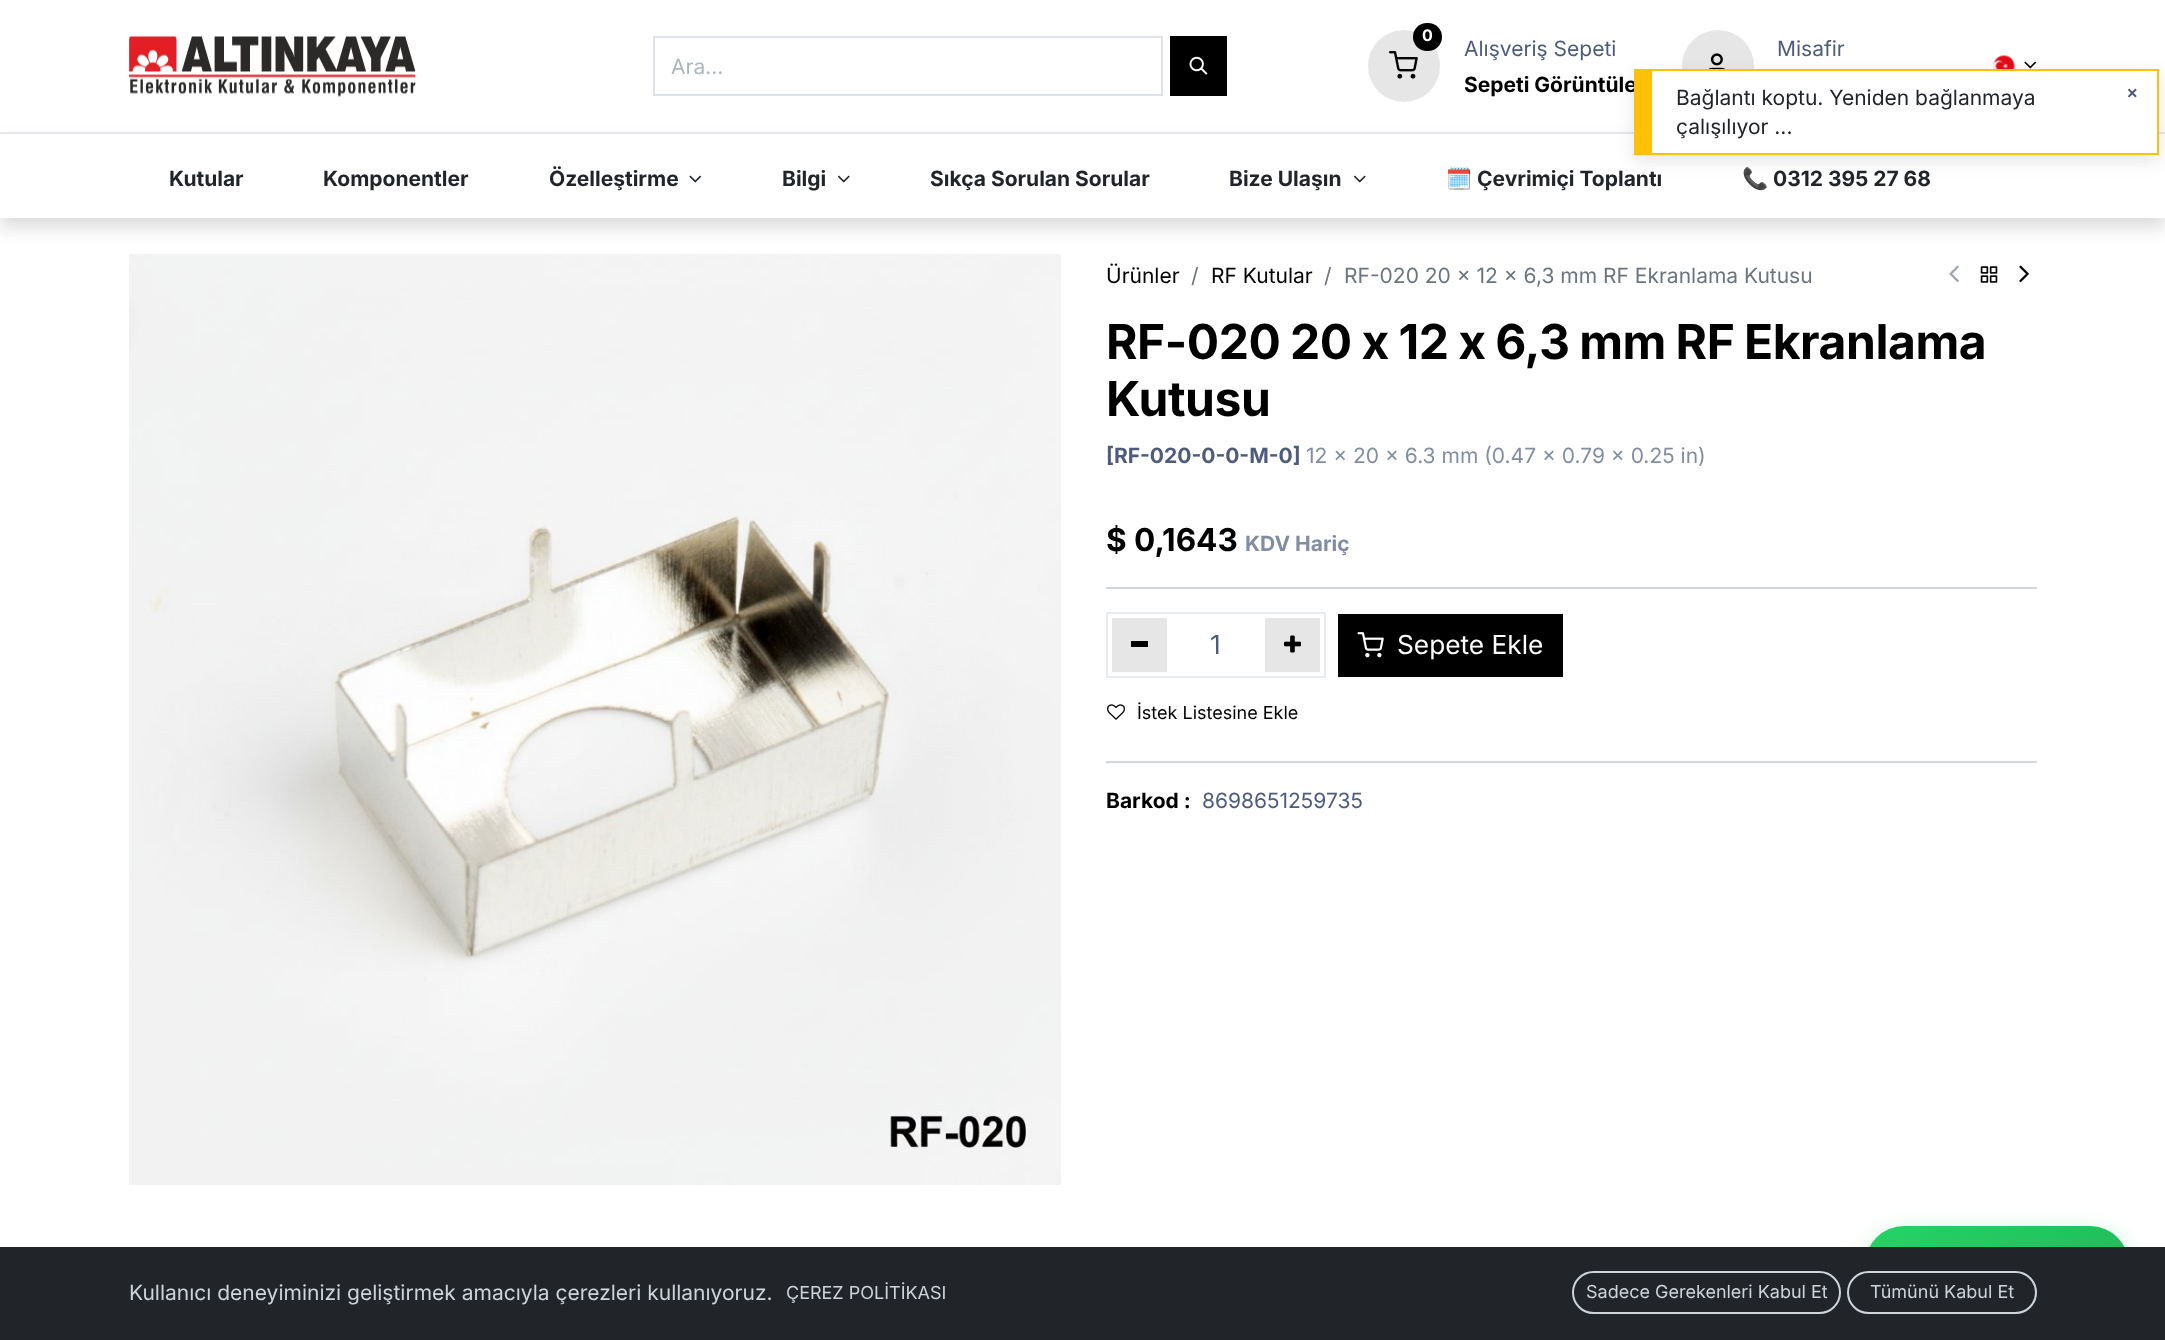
<svg xmlns="http://www.w3.org/2000/svg" xmlns:xlink="http://www.w3.org/1999/xlink" width="2165" height="1340" viewBox="0 0 2165 1340">
<style>
.cls-1{font:21px Inter;fill:#adb5bd}
.cls-2{font:bold 16px Inter;fill:#ffffff}
.cls-3{font:21px Inter;fill:#4d5b7c}
.cls-4{font:bold 21px Inter;fill:#000000}
.cls-5{font:bold 21px Inter;fill:#212529}
.cls-6{font:bold 21px Noto Color Emoji;fill:#212529}
.cls-7{font:21px Inter;fill:#000000}
.cls-8{font:21px Inter;fill:#6c757d}
.cls-9{font:bold 48px Inter;letter-spacing:-0.45px;fill:#000000}
.cls-10{font:bold 21px Inter;fill:#4d5b7c}
.cls-11{font:21px Inter;fill:#828ca3}
.cls-12{font:bold 31.5px Inter;fill:#000000}
.cls-13{font:bold 21px Inter;fill:#828ca3}
.cls-14{font:26.25px Inter;fill:#4d5b7c}
.cls-15{font:26.25px Inter;fill:#ffffff}
.cls-16{font:18px Inter;fill:#000000}
.cls-17{font:21px Inter;fill:#ced4da}
.cls-18{font:18px Inter;fill:#ced4da}
.cls-19{font:21px Inter;fill:#212529}
.cls-20{font:bold 18px Liberation Sans;fill:#4d5b7c}
</style>
<defs>
<linearGradient id="g1" gradientUnits="userSpaceOnUse" x1="1911" y1="1179" x2="2082" y2="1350"><stop offset="0" stop-color="#25d366"/><stop offset="1" stop-color="#20ba5a"/></linearGradient>
</defs>
<rect width="100%" height="100%" fill="#ffffff"/>
<rect fill="#eaebef" x="0" y="132" width="2165" height="2"/>
<image xlink:href="image0.png" x="129" y="36" width="287" height="61"/>
<rect fill="none" stroke="#dee2e6" stroke-width="2" x="654" y="37" width="508" height="58"/>
<rect fill="#000000" x="1170" y="36" width="57" height="60"/>
<image xlink:href="image1.png" x="1189" y="56" width="19" height="19"/>
<circle fill="#e6e6e6" cx="1404" cy="66" r="36"/>
<rect fill="#000000" x="1413" y="23" width="29" height="28" rx="14"/>
<image xlink:href="image2.png" x="1389" y="51" width="29" height="28"/>
<circle fill="#e6e6e6" cx="1718" cy="66" r="36"/>
<image xlink:href="image3.png" x="1708" y="53" width="18" height="16"/>
<image xlink:href="image4.png" x="1993" y="55" width="22" height="14"/>
<image xlink:href="image5.png" x="2024" y="61" width="13" height="8"/>
<image xlink:href="image8.png" x="129" y="254" width="932" height="931"/>
<rect fill="#000000" fill-opacity="0.15" filter="blur(9px)" x="0" y="143" width="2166" height="84"/>
<rect fill="#ffffff" x="0" y="134" width="2165" height="84"/>
<image xlink:href="image6.png" x="689" y="175" width="13" height="8"/>
<image xlink:href="image7.png" x="837" y="175" width="13" height="8"/>
<image xlink:href="image7.png" x="1353" y="175" width="13" height="8"/>
<image xlink:href="image9.png" x="1949" y="265" width="10" height="18"/>
<image xlink:href="image10.png" x="1980" y="266" width="18" height="17"/>
<image xlink:href="image11.png" x="2019" y="265" width="10" height="18"/>
<rect fill="#d3d6de" x="1106" y="587" width="931" height="2"/>
<rect fill="none" stroke="#e9ecef" stroke-width="2" x="1107" y="613" width="218" height="64"/>
<rect fill="#e6e6e6" x="1112" y="618" width="55" height="54"/>
<rect fill="#000000" x="1131" y="641" width="17" height="6"/>
<rect fill="#e6e6e6" x="1265" y="618" width="55" height="54"/>
<image xlink:href="image12.png" x="1284" y="635" width="17" height="18"/>
<rect fill="#000000" x="1338" y="614" width="225" height="63"/>
<image xlink:href="image13.png" x="1357" y="632" width="27" height="26"/>
<image xlink:href="image14.png" x="1107" y="704" width="18" height="16"/>
<rect fill="#d3d6de" x="1106" y="761" width="931" height="2"/>
<rect fill="#25d366" fill-opacity="0.3" filter="blur(11px)" x="1865" y="1232" width="264" height="78" rx="39"/>
<rect fill="url(#g1)" x="1865" y="1226" width="264" height="78" rx="39"/>
<rect fill="#212529" x="0" y="1247" width="2165" height="93"/>
<rect fill="none" stroke="#ced4da" stroke-width="2" x="1573" y="1272" width="267" height="41" rx="20.5"/>
<rect fill="none" stroke="#ced4da" stroke-width="2" x="1848" y="1272" width="188" height="41" rx="20.5"/>
<rect fill="#000000" fill-opacity="0.1" filter="blur(9px)" x="1634" y="75" width="525" height="86"/>
<rect fill="#ffffff" x="1652" y="71" width="505" height="82"/>
<rect fill="#ffc107" x="1652" y="69" width="507" height="2"/>
<rect fill="#ffc107" x="2157" y="69" width="2" height="86"/>
<rect fill="#ffc107" x="1652" y="153" width="507" height="2"/>
<text class="cls-1" x="671" y="74">Ara...</text>
<text class="cls-2" x="1422" y="41">0</text>
<text class="cls-3" x="1464" y="56">Alışveriş Sepeti</text>
<text class="cls-4" x="1464" y="92">Sepeti Görüntüle</text>
<text class="cls-3" x="1777" y="56">Misafir</text>
<text class="cls-5" x="169" y="186">Kutular</text>
<text class="cls-5" x="323" y="186">Komponentler</text>
<text class="cls-5" x="549" y="186">Özelleştirme</text>
<text class="cls-5" x="782" y="186">Bilgi</text>
<text class="cls-5" x="930" y="186">Sıkça Sorulan Sorular</text>
<text class="cls-5" x="1229" y="186">Bize Ulaşın</text>
<text class="cls-6" x="1446" y="186">🗓️</text>
<text class="cls-5" x="1477" y="186">Çevrimiçi Toplantı</text>
<text class="cls-6" x="1742" y="186">📞</text>
<text class="cls-5" x="1773" y="186">0312 395 27 68</text>
<text class="cls-7" x="1106" y="283">Ürünler</text>
<text class="cls-8" x="1191" y="283">/</text>
<text class="cls-7" x="1211" y="283">RF Kutular</text>
<text class="cls-8" x="1324" y="283">/</text>
<text class="cls-8" x="1344" y="283">RF-020 20 x 12 x 6,3 mm RF Ekranlama Kutusu</text>
<text class="cls-9"><tspan x="1106" y="359" word-spacing="-1.25">RF-020 20 x 12 x 6,3 mm RF Ekranlama</tspan><tspan x="1106" y="416">Kutusu</tspan></text>
<text class="cls-10" x="1106" y="463">[RF-020-0-0-M-0]</text>
<text class="cls-11" x="1306" y="463">12 x 20 x 6.3 mm (0.47 x 0.79 x 0.25 in)</text>
<text class="cls-12" x="1106" y="551">$ 0,1643</text>
<text class="cls-13" x="1245" y="551">KDV Hariç</text>
<text class="cls-14" x="1210" y="654">1</text>
<text class="cls-15" x="1397" y="654">Sepete Ekle</text>
<text class="cls-16" x="1137" y="719">İstek Listesine Ekle</text>
<text class="cls-4" x="1106" y="808">Barkod :</text>
<text class="cls-3" x="1202" y="808">8698651259735</text>
<text class="cls-17" x="129" y="1300">Kullanıcı deneyiminizi geliştirmek amacıyla çerezleri kullanıyoruz.</text>
<text class="cls-18" x="786" y="1299">ÇEREZ POLİTİKASI</text>
<text class="cls-18" x="1586" y="1298">Sadece Gerekenleri Kabul Et</text>
<text class="cls-18" x="1870" y="1298">Tümünü Kabul Et</text>
<rect fill="#ffc107" x="1634" y="69" width="18" height="86"/>
<text class="cls-19"><tspan x="1676" y="105">Bağlantı koptu. Yeniden bağlanmaya</tspan><tspan x="1676" y="134">çalışılıyor ...</tspan></text>
<text class="cls-20" x="2127" y="99">×</text>
</svg>
